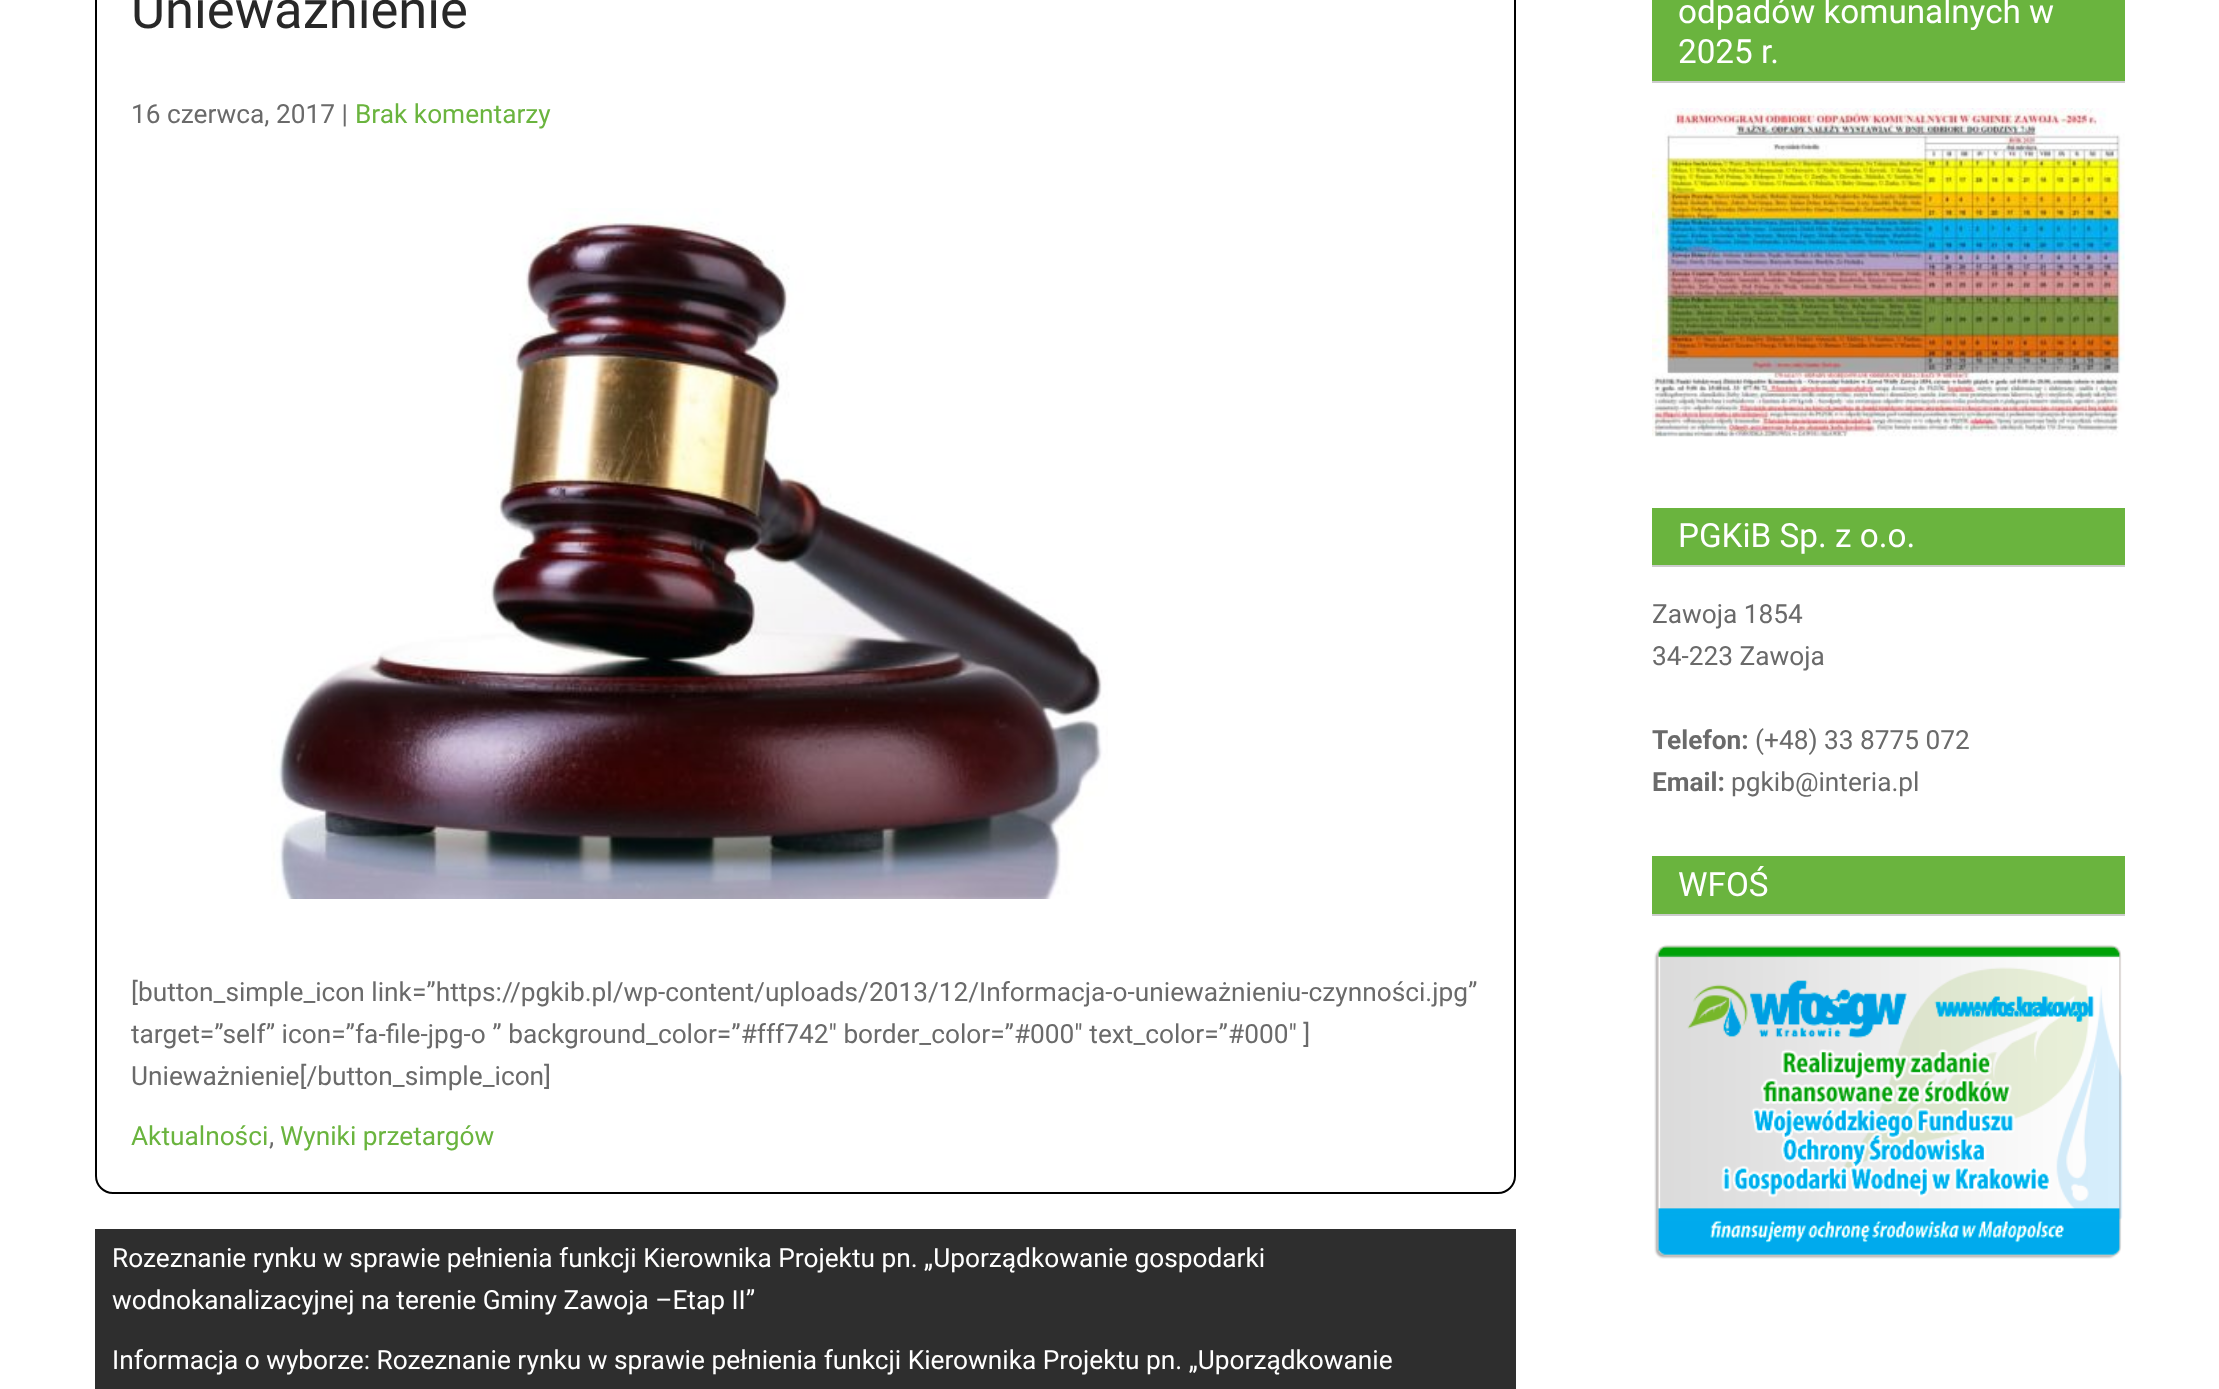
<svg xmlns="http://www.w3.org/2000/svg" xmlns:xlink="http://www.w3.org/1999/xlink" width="2219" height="1389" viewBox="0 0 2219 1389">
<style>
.cls-1{font:52.5px Roboto;fill:#282828}
.cls-2{font:26.25px Roboto;fill:#6a6a6a}
.cls-3{font:26.25px Roboto;fill:#6ab43e}
.cls-4{font:26.25px Roboto;fill:#ffffff}
.cls-5{font:33.25px Roboto;fill:#ffffff}
.cls-6{font:bold 26.25px Roboto;fill:#6a6a6a}
</style>
<rect width="100%" height="100%" fill="#ffffff"/>
<rect fill="none" stroke="#000000" stroke-width="2" x="96" y="-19" width="1419" height="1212" rx="17"/>
<image xlink:href="image0.png" x="271" y="208" width="837" height="691"/>
<rect fill="#2e2e2e" x="95" y="1229" width="1421" height="160"/>
<rect fill="#6ab43e" x="1652" y="0" width="473" height="81"/>
<rect fill="#cccccc" x="1652" y="81" width="473" height="2"/>
<image xlink:href="image1.png" x="1652" y="108" width="473" height="329"/>
<rect fill="#6ab43e" x="1652" y="508" width="473" height="57"/>
<rect fill="#cccccc" x="1652" y="565" width="473" height="2"/>
<rect fill="#6ab43e" x="1652" y="856" width="473" height="58"/>
<rect fill="#cccccc" x="1652" y="914" width="473" height="2"/>
<image xlink:href="image2.png" x="1654" y="944" width="469" height="315"/>
<text class="cls-1" x="131" y="28">Unieważnienie</text>
<text class="cls-2" x="131" y="123">16 czerwca, 2017 |</text>
<text class="cls-3" x="355" y="123">Brak komentarzy</text>
<text class="cls-2"><tspan x="131" y="1001">[button_simple_icon link=”https://pgkib.pl/wp-content/uploads/2013/12/Informacja-o-unieważnieniu-czynności.jpg”</tspan><tspan x="131" y="1043">target=”self” icon=”fa-file-jpg-o ” background_color=”#fff742″ border_color=”#000″ text_color=”#000″ ]</tspan><tspan x="131" y="1085">Unieważnienie[/button_simple_icon]</tspan></text>
<text class="cls-3" x="131" y="1145">Aktualności</text>
<text class="cls-2" x="269" y="1145">,</text>
<text class="cls-3" x="280" y="1145">Wyniki przetargów</text>
<text class="cls-4"><tspan x="112" y="1267">Rozeznanie rynku w sprawie pełnienia funkcji Kierownika Projektu pn. „Uporządkowanie gospodarki</tspan><tspan x="112" y="1309">wodnokanalizacyjnej na terenie Gminy Zawoja –Etap II”</tspan></text>
<text class="cls-4" x="112" y="1369">Informacja o wyborze: Rozeznanie rynku w sprawie pełnienia funkcji Kierownika Projektu pn. „Uporządkowanie</text>
<text class="cls-5"><tspan x="1678" y="23">odpadów komunalnych w</tspan><tspan x="1678" y="63">2025 r.</tspan></text>
<text class="cls-5" x="1678" y="547">PGKiB Sp. z o.o.</text>
<text class="cls-2"><tspan x="1652" y="623">Zawoja 1854</tspan><tspan x="1652" y="665">34-223 Zawoja</tspan></text>
<text class="cls-6" x="1652" y="749">Telefon:</text>
<text class="cls-2" x="1755" y="749">(+48) 33 8775 072</text>
<text class="cls-6" x="1652" y="791">Email:</text>
<text class="cls-2" x="1731" y="791">pgkib@interia.pl</text>
<text class="cls-5" x="1678" y="896">WFOŚ</text>
</svg>
